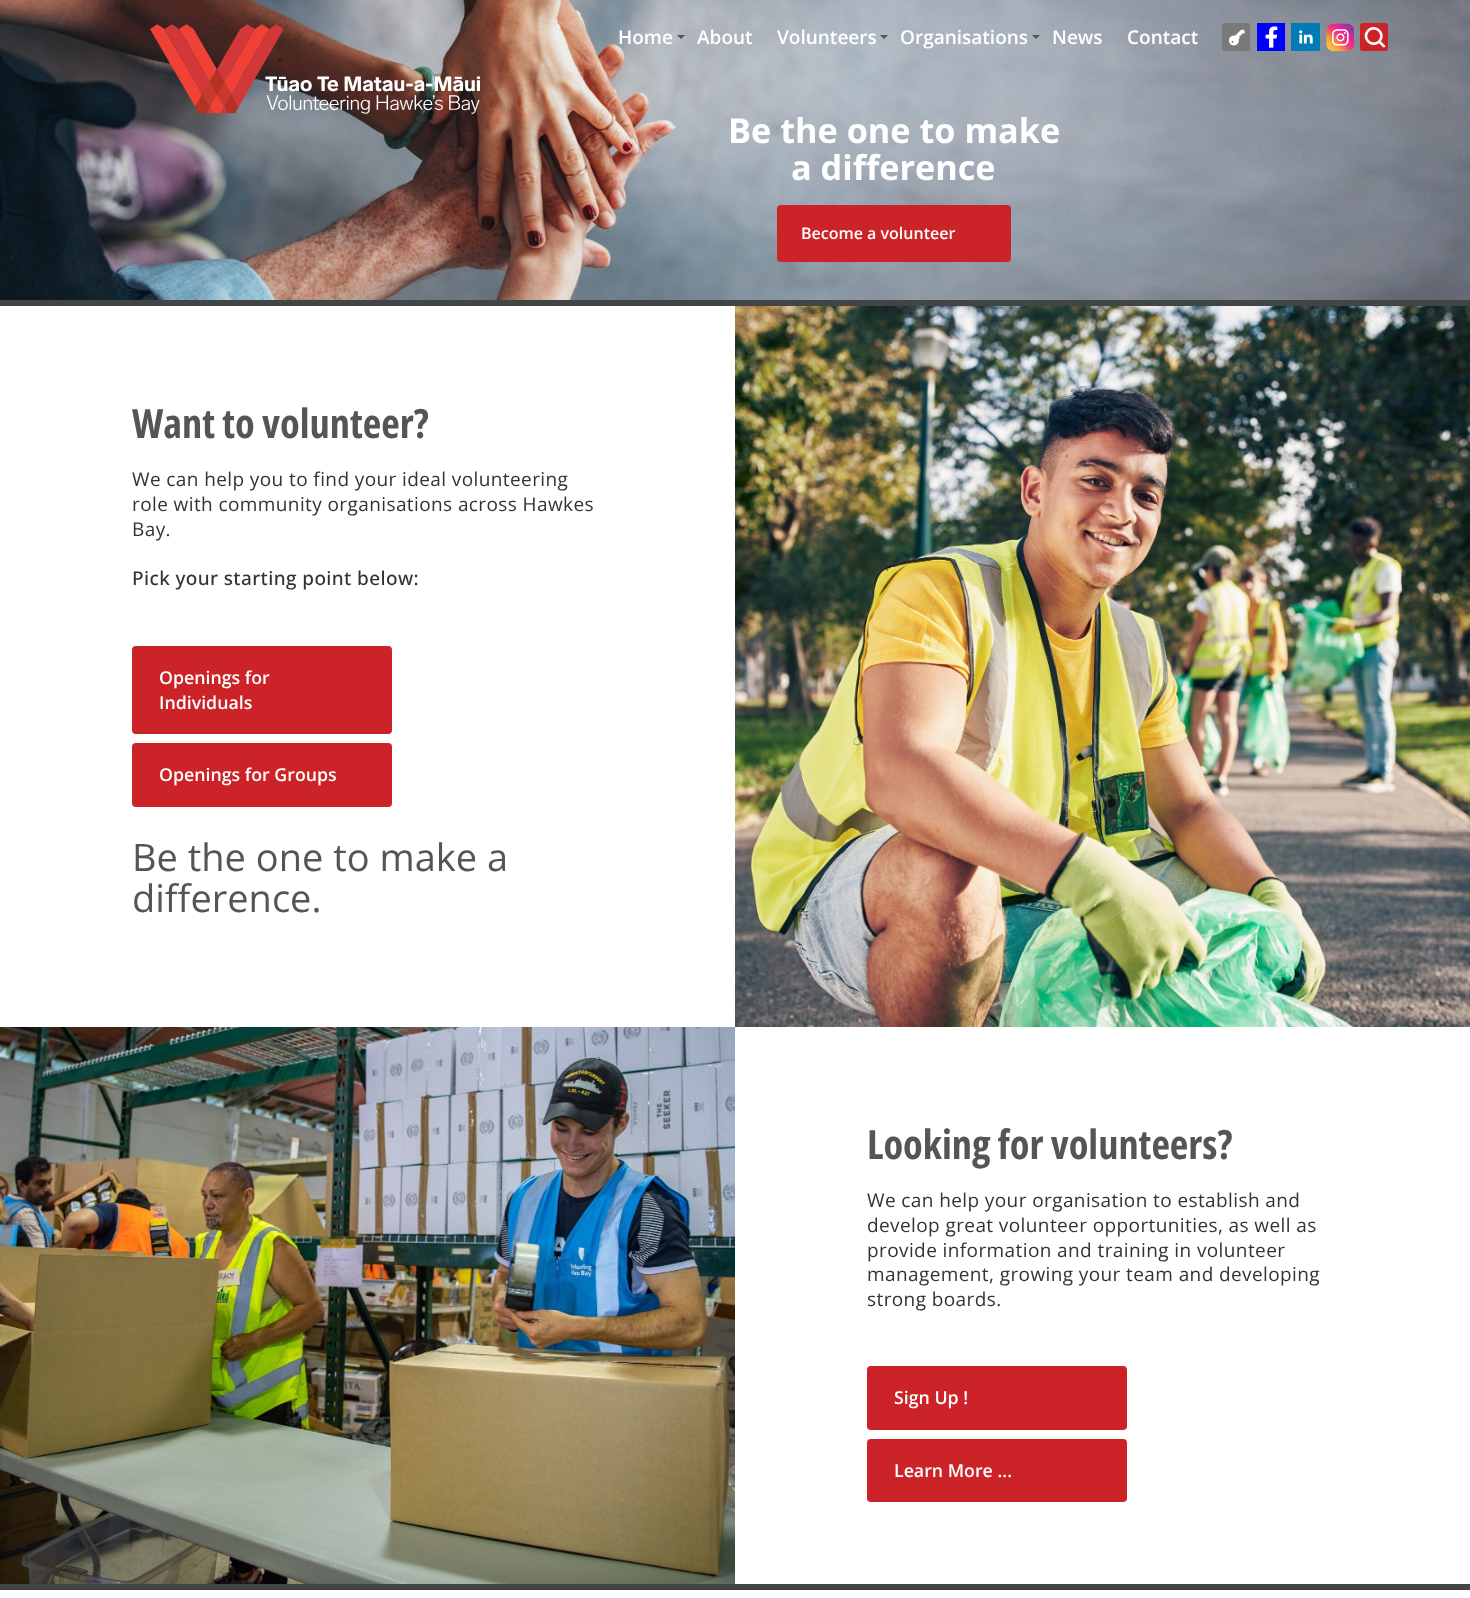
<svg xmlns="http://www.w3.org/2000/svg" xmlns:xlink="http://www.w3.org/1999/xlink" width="1470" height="1598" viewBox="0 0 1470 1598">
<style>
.cls-1{font:600 19px Open Sans;fill:#ffffff}
.cls-2{font:bold 34.25px Open Sans;fill:#ffffff}
.cls-3{font:600 16px Open Sans;fill:#ffffff}
.cls-4{font:bold 40.4px 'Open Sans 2';fill:#555555}
.cls-5{font:19px Open Sans;letter-spacing:0.4px;fill:#333333}
.cls-6{font:500 19px Open Sans;letter-spacing:0.4px;fill:#333333}
.cls-7{font:600 17.75px Open Sans;fill:#ffffff}
.cls-8{font:38px Open Sans;fill:#555555}
</style>
<rect width="100%" height="100%" fill="#ffffff"/>
<rect fill="#424546" x="0" y="300" width="1470" height="6"/>
<image xlink:href="image6.png" x="0" y="0" width="1470" height="300"/>
<image xlink:href="image0.png" x="150" y="24" width="330" height="90"/>
<path fill="#555555" d="M677 35H685L681 39Z"/>
<path fill="#555555" d="M880 35H888L884 39Z"/>
<path fill="#555555" d="M1032 35H1040L1036 39Z"/>
<image xlink:href="image1.png" x="1222" y="23" width="28" height="28"/>
<image xlink:href="image2.png" x="1257" y="23" width="28" height="28"/>
<image xlink:href="image3.png" x="1291" y="23" width="29" height="28"/>
<image xlink:href="image4.png" x="1326" y="23" width="28" height="28"/>
<image xlink:href="image5.png" x="1360" y="23" width="28" height="28"/>
<rect fill="#cc2328" x="777" y="205" width="234" height="57" rx="4"/>
<rect fill="#424546" x="0" y="1584" width="1470" height="6"/>
<rect fill="#cc2328" x="132" y="646" width="260" height="88" rx="4"/>
<rect fill="#cc2328" x="132" y="743" width="260" height="64" rx="4"/>
<image xlink:href="image7.png" x="735" y="306" width="735" height="721"/>
<image xlink:href="image8.png" x="0" y="1027" width="735" height="557"/>
<rect fill="#cc2328" x="867" y="1366" width="260" height="64" rx="4"/>
<rect fill="#cc2328" x="867" y="1439" width="260" height="63" rx="4"/>
<text class="cls-1" x="618" y="44">Home</text>
<text class="cls-1" x="697" y="44">About</text>
<text class="cls-1" x="777" y="44">Volunteers</text>
<text class="cls-1" x="900" y="44">Organisations</text>
<text class="cls-1" x="1052" y="44">News</text>
<text class="cls-1" x="1127" y="44">Contact</text>
<text class="cls-2" x="728" y="143">Be the one to make</text>
<text class="cls-2" x="791" y="180">a difference</text>
<text class="cls-3" x="801" y="239">Become a volunteer</text>
<text class="cls-4" x="132" y="438">Want to volunteer?</text>
<text class="cls-5"><tspan x="132" y="486">We can help you to find your ideal volunteering</tspan><tspan x="132" y="511">role with community organisations across Hawkes</tspan><tspan x="132" y="536">Bay.</tspan></text>
<text class="cls-6" x="132" y="585">Pick your starting point below:</text>
<text class="cls-7"><tspan x="159" y="684">Openings for</tspan><tspan x="159" y="709">Individuals</tspan></text>
<text class="cls-7" x="159" y="781">Openings for Groups</text>
<text class="cls-8"><tspan x="132" y="871">Be the one to make a</tspan><tspan x="132" y="912">difference.</tspan></text>
<text class="cls-4" x="867" y="1159">Looking for volunteers?</text>
<text class="cls-5"><tspan x="867" y="1207">We can help your organisation to establish and</tspan><tspan x="867" y="1232">develop great volunteer opportunities, as well as</tspan><tspan x="867" y="1257">provide information and training in volunteer</tspan><tspan x="867" y="1281">management, growing your team and developing</tspan><tspan x="867" y="1306">strong boards.</tspan></text>
<text class="cls-7" x="894" y="1404">Sign Up !</text>
<text class="cls-7" x="894" y="1477">Learn More ...</text>
</svg>
